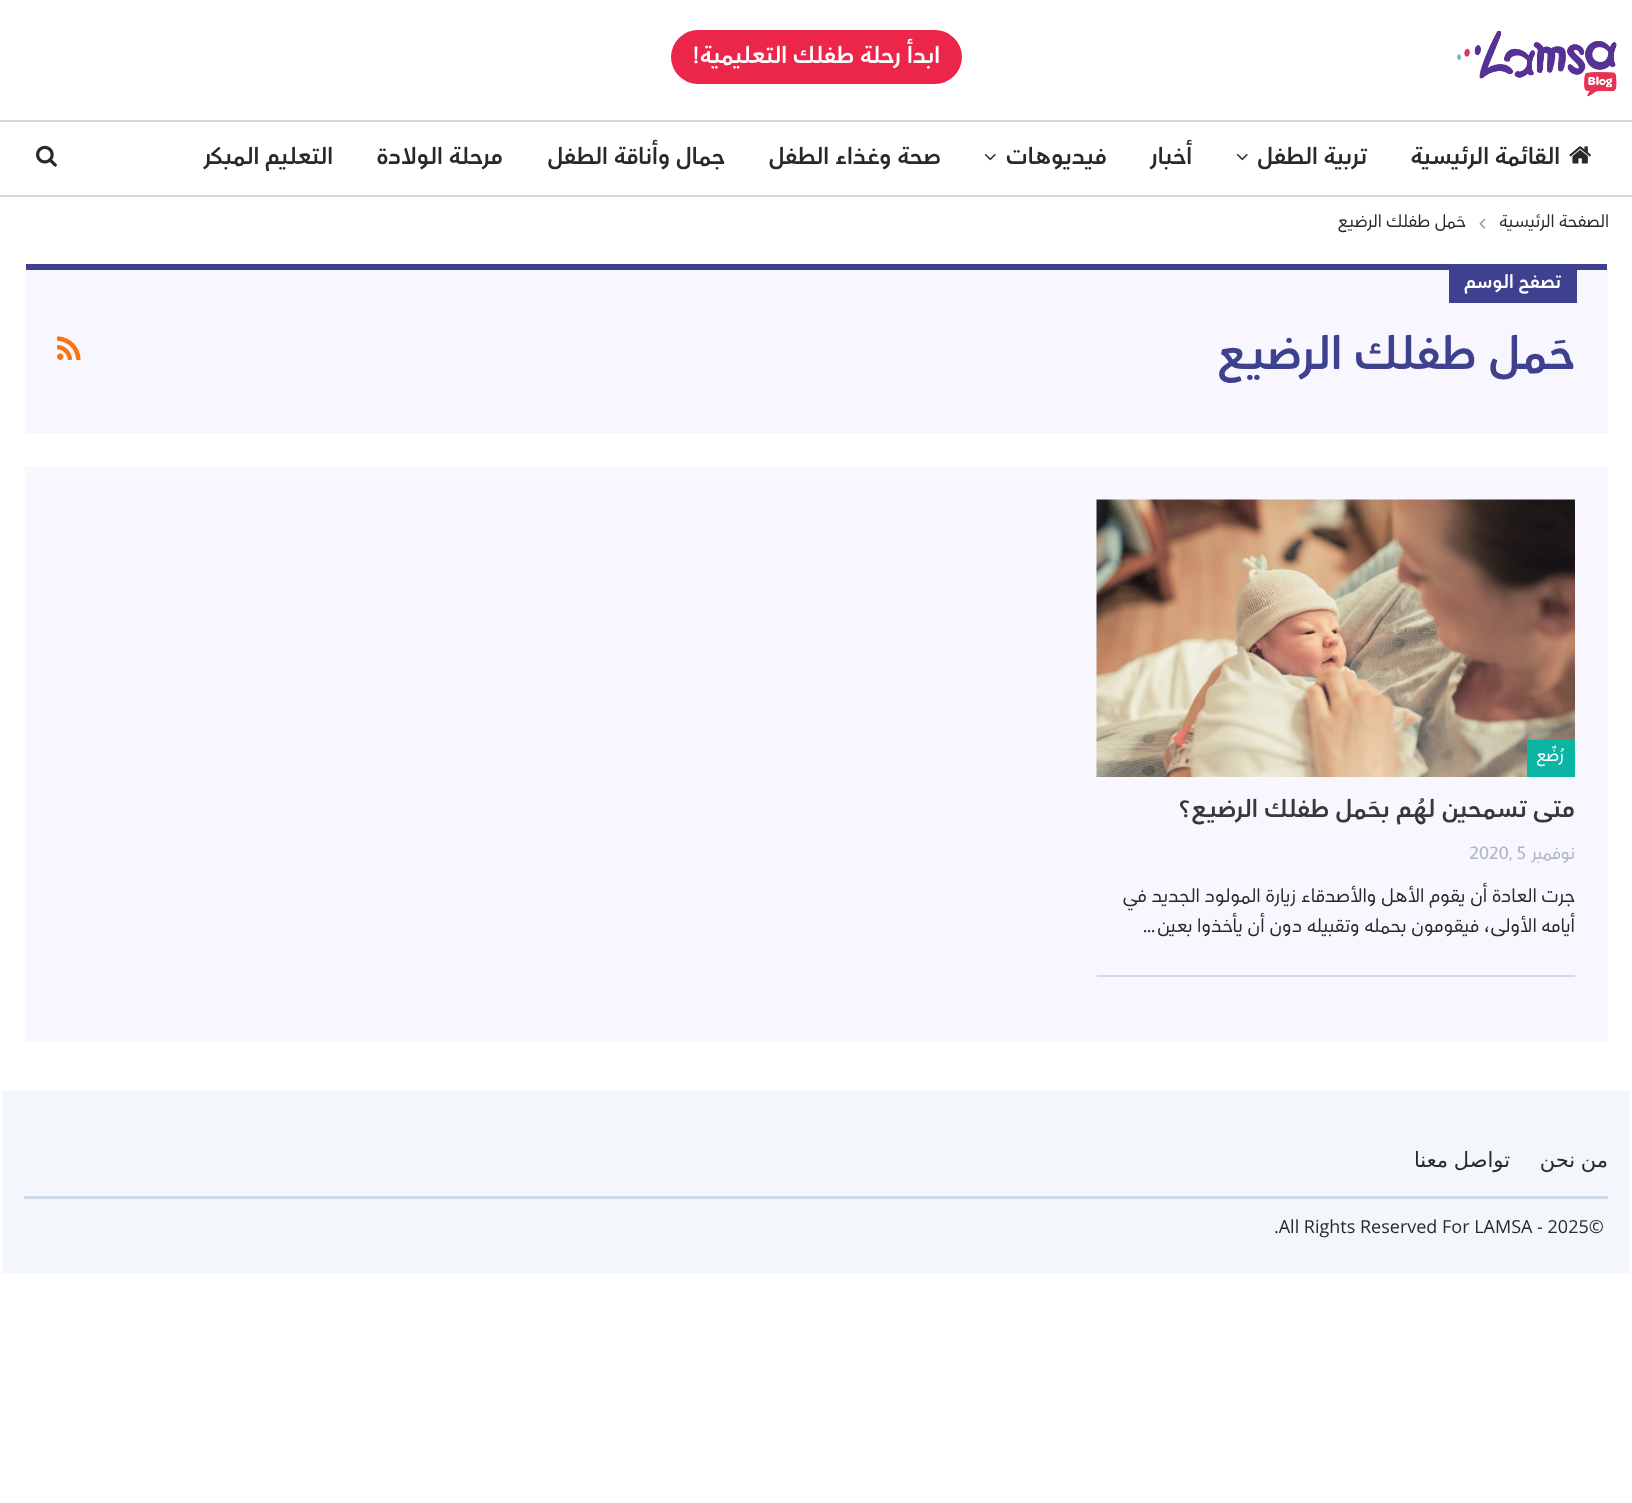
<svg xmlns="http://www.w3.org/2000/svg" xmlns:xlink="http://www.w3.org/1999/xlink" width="1632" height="1503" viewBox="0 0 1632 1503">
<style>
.cls-1{font:bold 24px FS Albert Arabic;direction:rtl;fill:#ffffff}
.cls-2{font:bold 24px FS Albert Arabic;direction:rtl;fill:#292929}
.cls-3{font:18px FS Albert Arabic;direction:rtl;fill:#292929}
.cls-4{font:bold 19.5px FS Albert Arabic;direction:rtl;fill:#ffffff}
.cls-5{font:bold 48px FS Albert Arabic;direction:rtl;fill:#3e418e}
.cls-6{font:18px FS Albert Arabic;direction:rtl;fill:#ffffff}
.cls-7{font:bold 25.5px FS Albert Arabic;direction:rtl;fill:#383838}
.cls-8{font:18px FS Albert Arabic;direction:rtl;fill:#adb5bd}
.cls-9{font:18px FS Albert Arabic;fill:#adb5bd}
.cls-10{font:19.5px FS Albert Arabic;direction:rtl;fill:#292929}
.cls-11{font:19.5px FS Albert Arabic;fill:#292929}
.cls-12{font:21px DejaVu Sans;direction:rtl;fill:#292929}
.cls-13{font:18px Open Sans;fill:#292929}
</style>
<rect width="100%" height="100%" fill="#ffffff"/>
<image xlink:href="image0.png" x="1457" y="30" width="160" height="67"/>
<rect fill="#eb264a" x="671" y="30" width="291" height="54" rx="27"/>
<rect fill="#cfdae8" x="0" y="120" width="1632" height="2"/>
<rect fill="#cfdae8" x="0" y="195" width="1632" height="2"/>
<image xlink:href="image1.png" x="1569" y="146" width="22" height="18"/>
<image xlink:href="image2.png" x="1236" y="153" width="12" height="8"/>
<image xlink:href="image2.png" x="984" y="153" width="12" height="8"/>
<image xlink:href="image3.png" x="36" y="145" width="21" height="22"/>
<image xlink:href="image4.png" x="1479" y="218" width="7" height="11"/>
<rect fill="#f8f7ff" x="25" y="265" width="1583" height="168"/>
<rect fill="#3e418e" x="26" y="264" width="1581" height="6"/>
<rect fill="#3e418e" x="1449" y="270" width="128" height="33"/>
<image xlink:href="image5.png" x="57" y="336" width="24" height="24"/>
<rect fill="#f8f7ff" x="25" y="467" width="1583" height="575"/>
<image xlink:href="image6.png" x="1096" y="499" width="479" height="278"/>
<rect fill="#0bb5a4" x="1527" y="740" width="48" height="37"/>
<rect fill="#cfdae8" x="1097" y="975" width="478" height="2"/>
<rect fill="#f3f7fc" x="2" y="1091" width="1628" height="182"/>
<rect fill="#cfdae8" x="24" y="1196" width="1584" height="3"/>
<text class="cls-1" x="940" y="63">ابدأ رحلة طفلك التعليمية!</text>
<text class="cls-2" x="1560" y="164">القائمة الرئيسية</text>
<text class="cls-2" x="1367" y="164">تربية الطفل</text>
<text class="cls-2" x="1192" y="164">أخبار</text>
<text class="cls-2" x="1107" y="164">فيديوهات</text>
<text class="cls-2" x="941" y="164">صحة وغذاء الطفل</text>
<text class="cls-2" x="725" y="164">جمال وأناقة الطفل</text>
<text class="cls-2" x="503" y="164">مرحلة الولادة</text>
<text class="cls-2" x="333" y="164">التعليم المبكر</text>
<text class="cls-3" x="1609" y="227">الصفحة الرئيسية</text>
<text class="cls-3" x="1466" y="227">حَمل طفلك الرضيع</text>
<text class="cls-4" x="1561" y="288">تصفح الوسم</text>
<text class="cls-5" x="1575" y="369">حَمل طفلك الرضيع</text>
<text class="cls-6" x="1564" y="761">رُضّع</text>
<text class="cls-7" x="1575" y="817">متى تسمحين لهُم بحَمل طفلك الرضيع؟</text>
<text class="cls-8" x="1575" y="859">نوفمبر</text>
<text class="cls-9" x="1469" y="859">2020, 5</text>
<text class="cls-10"><tspan x="1575" y="902">جرت العادة أن يقوم الأهل والأصدقاء زيارة المولود الجديد في</tspan><tspan x="1575" y="932">أيامه الأولى، فيقومون بحمله وتقبيله دون أن يأخذوا بعين</tspan></text>
<text class="cls-11" x="1143" y="932">…</text>
<text class="cls-12" x="1608" y="1167" word-spacing="-1">من نحن</text>
<text class="cls-12" x="1510" y="1167" word-spacing="-1">تواصل معنا</text>
<text class="cls-13" x="1274" y="1233">.All Rights Reserved For LAMSA - 2025©</text>
</svg>
